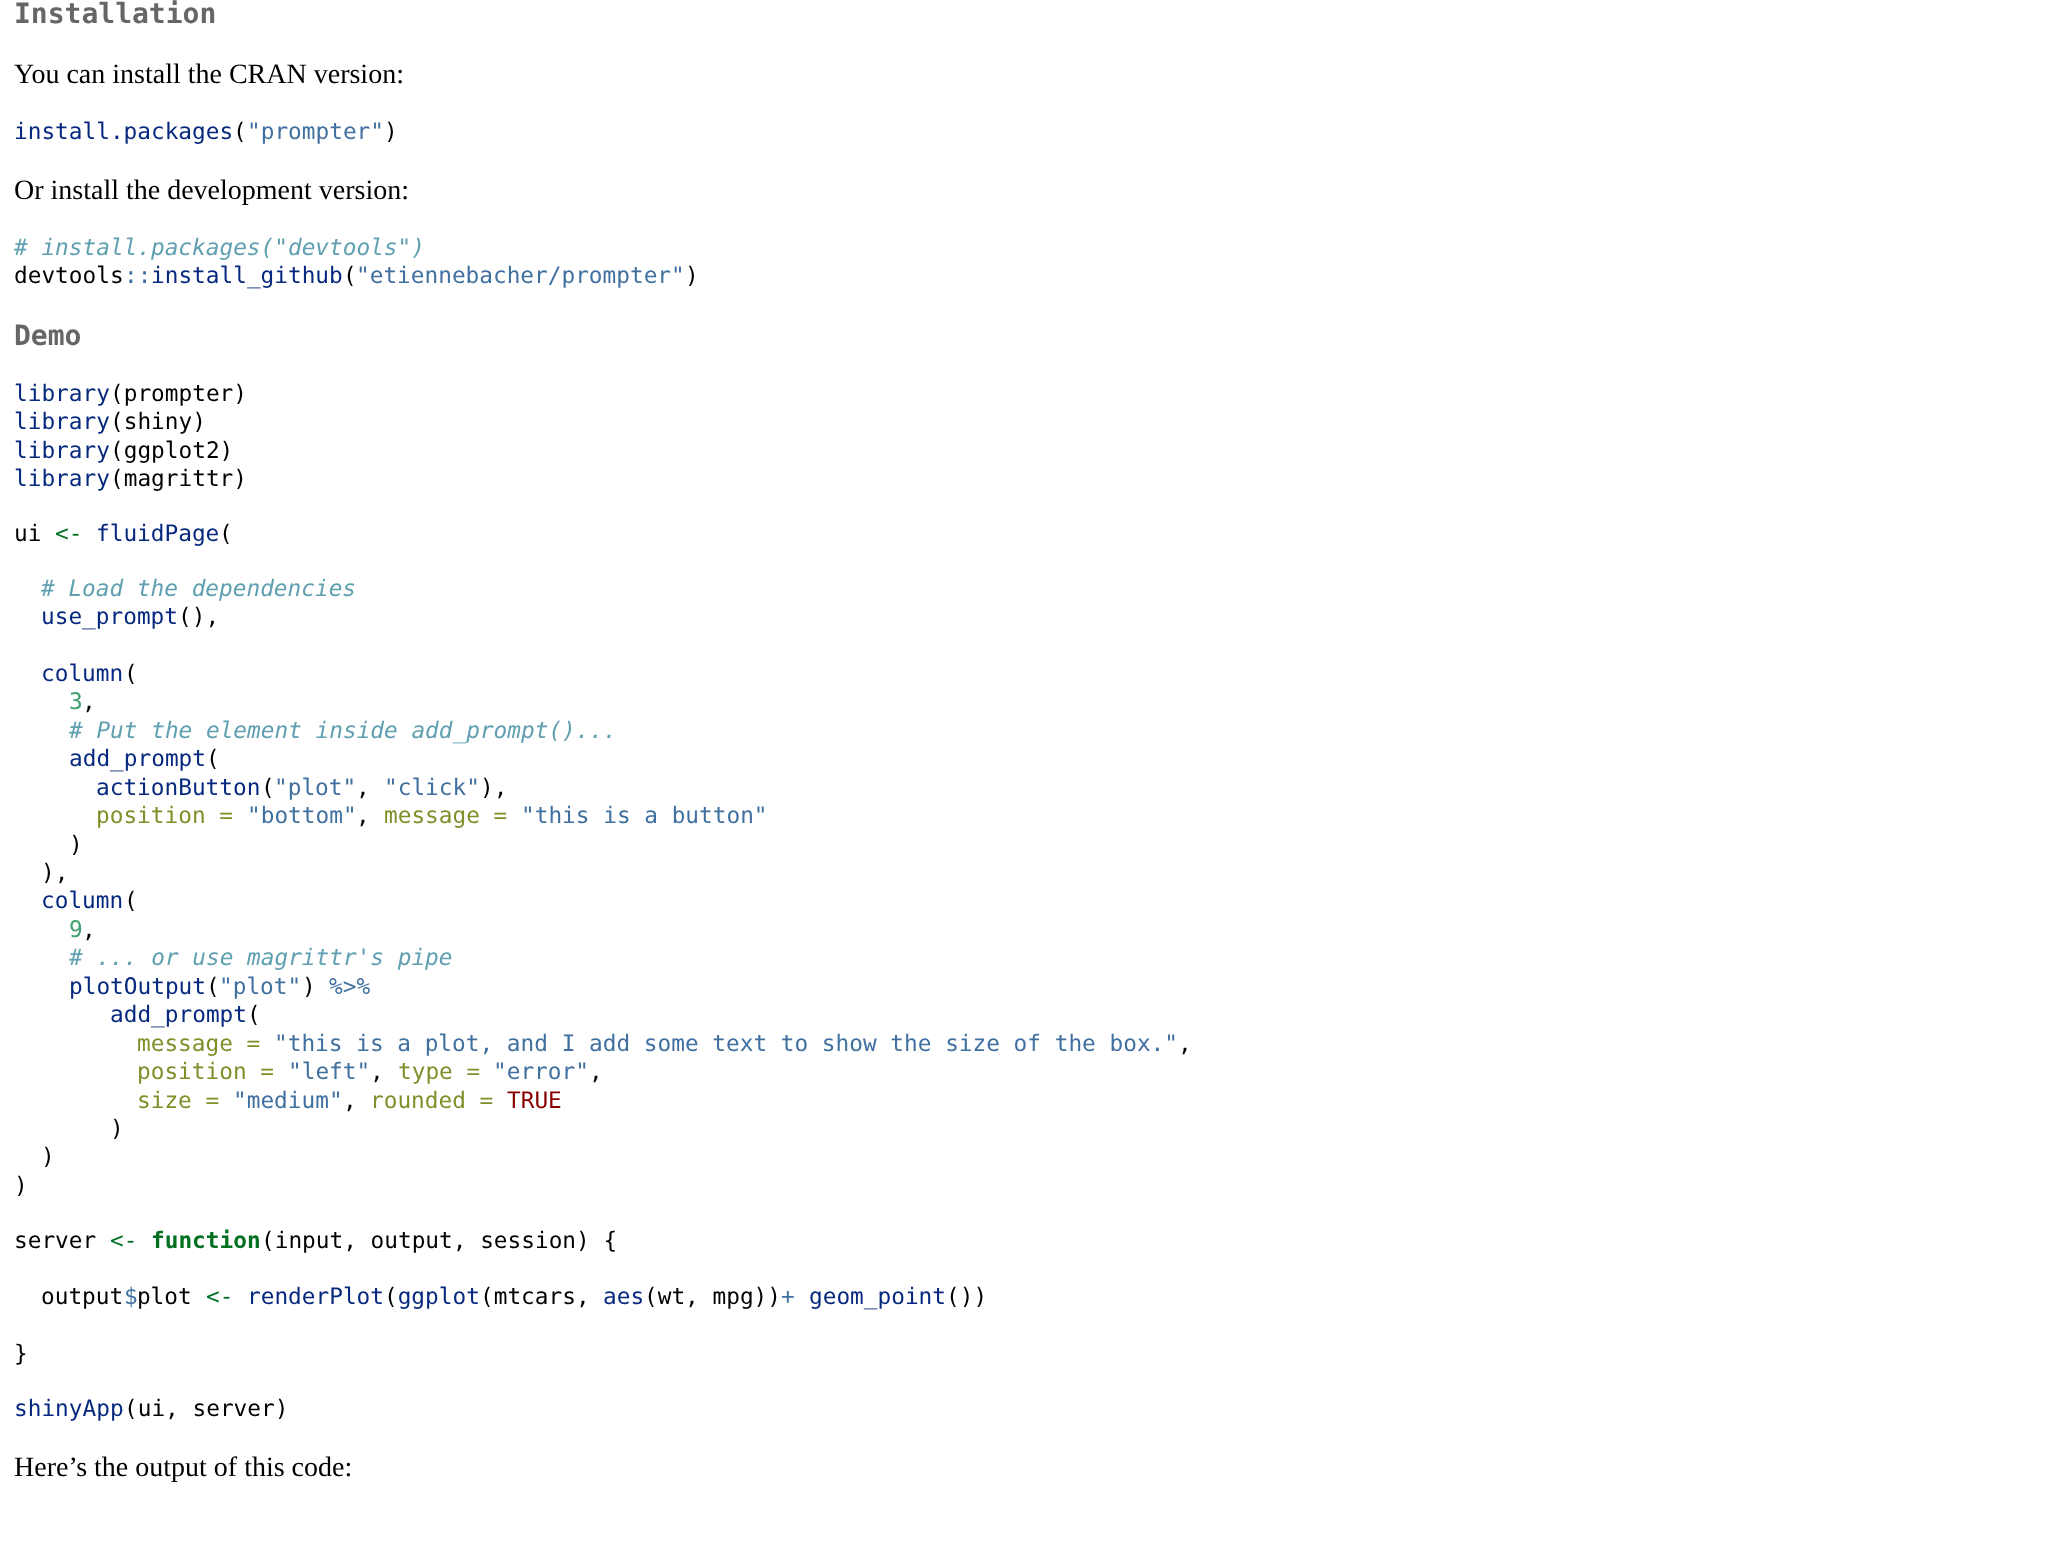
<svg xmlns="http://www.w3.org/2000/svg" xmlns:xlink="http://www.w3.org/1999/xlink" width="2072" height="1551" viewBox="0 0 2072 1551">
<style>
.cls-1{font:bold 28px DejaVu Sans Mono;fill:#666666}
.cls-2{font:28px Liberation Serif;fill:#000000}
.cls-3{font:22.75px DejaVu Sans Mono;fill:#06287e}
.cls-4{font:22.75px DejaVu Sans Mono;fill:#000000}
.cls-5{font:22.75px DejaVu Sans Mono;fill:#4070a0}
.cls-6{font:italic 22.75px DejaVu Sans Mono;fill:#60a0b0}
.cls-7{font:22.75px DejaVu Sans Mono;fill:#007020}
.cls-8{font:22.75px DejaVu Sans Mono;fill:#40a070}
.cls-9{font:22.75px DejaVu Sans Mono;fill:#7d9029}
.cls-10{font:22.75px DejaVu Sans Mono;fill:#880000}
.cls-11{font:bold 22.75px DejaVu Sans Mono;fill:#007020}
</style>
<rect width="100%" height="100%" fill="#ffffff"/>
<text class="cls-1" x="14" y="23">Installation</text>
<text class="cls-2" x="14" y="83">You can install the CRAN version:</text>
<text class="cls-3" x="14" y="139">install.packages</text>
<text class="cls-4" x="233" y="139">(</text>
<text class="cls-5" x="247" y="139">"prompter"</text>
<text class="cls-4" x="384" y="139">)</text>
<text class="cls-2" x="14" y="199">Or install the development version:</text>
<text class="cls-6" x="14" y="255"># install.packages("devtools")</text>
<text class="cls-4" x="14" y="283">devtools</text>
<text class="cls-5" x="124" y="283">::</text>
<text class="cls-3" x="151" y="283">install_github</text>
<text class="cls-4" x="343" y="283">(</text>
<text class="cls-5" x="356" y="283">"etiennebacher/prompter"</text>
<text class="cls-4" x="685" y="283">)</text>
<text class="cls-1" x="14" y="345">Demo</text>
<text class="cls-3" x="14" y="401">library</text>
<text class="cls-4" x="110" y="401">(prompter)</text>
<text class="cls-3" x="14" y="429">library</text>
<text class="cls-4" x="110" y="429">(shiny)</text>
<text class="cls-3" x="14" y="458">library</text>
<text class="cls-4" x="110" y="458">(ggplot2)</text>
<text class="cls-3" x="14" y="486">library</text>
<text class="cls-4" x="110" y="486">(magrittr)</text>
<text class="cls-4" x="14" y="541">ui</text>
<text class="cls-7" x="55" y="541">&lt;-</text>
<text class="cls-3" x="96" y="541">fluidPage</text>
<text class="cls-4" x="219" y="541">(</text>
<text class="cls-6" x="41" y="596"># Load the dependencies</text>
<text class="cls-3" x="41" y="624">use_prompt</text>
<text class="cls-4" x="178" y="624">(),</text>
<text class="cls-3" x="41" y="681">column</text>
<text class="cls-4" x="124" y="681">(</text>
<text class="cls-8" x="69" y="709">3</text>
<text class="cls-4" x="82" y="709">,</text>
<text class="cls-6" x="69" y="738"># Put the element inside add_prompt()...</text>
<text class="cls-3" x="69" y="766">add_prompt</text>
<text class="cls-4" x="206" y="766">(</text>
<text class="cls-3" x="96" y="795">actionButton</text>
<text class="cls-4" x="261" y="795">(</text>
<text class="cls-5" x="274" y="795">"plot"</text>
<text class="cls-4" x="356" y="795">,</text>
<text class="cls-5" x="384" y="795">"click"</text>
<text class="cls-4" x="480" y="795">),</text>
<text class="cls-9" x="96" y="823">position =</text>
<text class="cls-5" x="247" y="823">"bottom"</text>
<text class="cls-4" x="356" y="823">,</text>
<text class="cls-9" x="384" y="823">message =</text>
<text class="cls-5" x="521" y="823">"this is a button"</text>
<text class="cls-4" x="69" y="852">)</text>
<text class="cls-4" x="41" y="880">),</text>
<text class="cls-3" x="41" y="908">column</text>
<text class="cls-4" x="124" y="908">(</text>
<text class="cls-8" x="69" y="937">9</text>
<text class="cls-4" x="82" y="937">,</text>
<text class="cls-6" x="69" y="965"># ... or use magrittr's pipe</text>
<text class="cls-3" x="69" y="994">plotOutput</text>
<text class="cls-4" x="206" y="994">(</text>
<text class="cls-5" x="219" y="994">"plot"</text>
<text class="cls-4" x="302" y="994">)</text>
<text class="cls-5" x="329" y="994">%&gt;%</text>
<text class="cls-3" x="110" y="1022">add_prompt</text>
<text class="cls-4" x="247" y="1022">(</text>
<text class="cls-9" x="137" y="1051">message =</text>
<text class="cls-5" x="274" y="1051">"this is a plot, and I add some text to show the size of the box."</text>
<text class="cls-4" x="1178" y="1051">,</text>
<text class="cls-9" x="137" y="1079">position =</text>
<text class="cls-5" x="288" y="1079">"left"</text>
<text class="cls-4" x="370" y="1079">,</text>
<text class="cls-9" x="398" y="1079">type =</text>
<text class="cls-5" x="493" y="1079">"error"</text>
<text class="cls-4" x="589" y="1079">,</text>
<text class="cls-9" x="137" y="1108">size =</text>
<text class="cls-5" x="233" y="1108">"medium"</text>
<text class="cls-4" x="343" y="1108">,</text>
<text class="cls-9" x="370" y="1108">rounded =</text>
<text class="cls-10" x="507" y="1108">TRUE</text>
<text class="cls-4" x="110" y="1136">)</text>
<text class="cls-4" x="41" y="1164">)</text>
<text class="cls-4" x="14" y="1193">)</text>
<text class="cls-4" x="14" y="1248">server</text>
<text class="cls-7" x="110" y="1248">&lt;-</text>
<text class="cls-11" x="151" y="1248">function</text>
<text class="cls-4" x="261" y="1248">(input, output, session) {</text>
<text class="cls-4" x="41" y="1304">output plot</text>
<text class="cls-5" x="124" y="1304">$</text>
<text class="cls-3" x="247" y="1304">renderPlot ggplot</text>
<text class="cls-7" x="206" y="1304">&lt;-</text>
<text class="cls-4" x="384" y="1304">(</text>
<text class="cls-4" x="480" y="1304">(mtcars,</text>
<text class="cls-3" x="603" y="1304">aes</text>
<text class="cls-4" x="644" y="1304">(wt, mpg))</text>
<text class="cls-5" x="781" y="1304">+</text>
<text class="cls-3" x="809" y="1304">geom_point</text>
<text class="cls-4" x="946" y="1304">())</text>
<text class="cls-4" x="14" y="1361">}</text>
<text class="cls-3" x="14" y="1416">shinyApp</text>
<text class="cls-4" x="124" y="1416">(ui, server)</text>
<text class="cls-2" x="14" y="1476">Here’s the output of this code:</text>
</svg>
